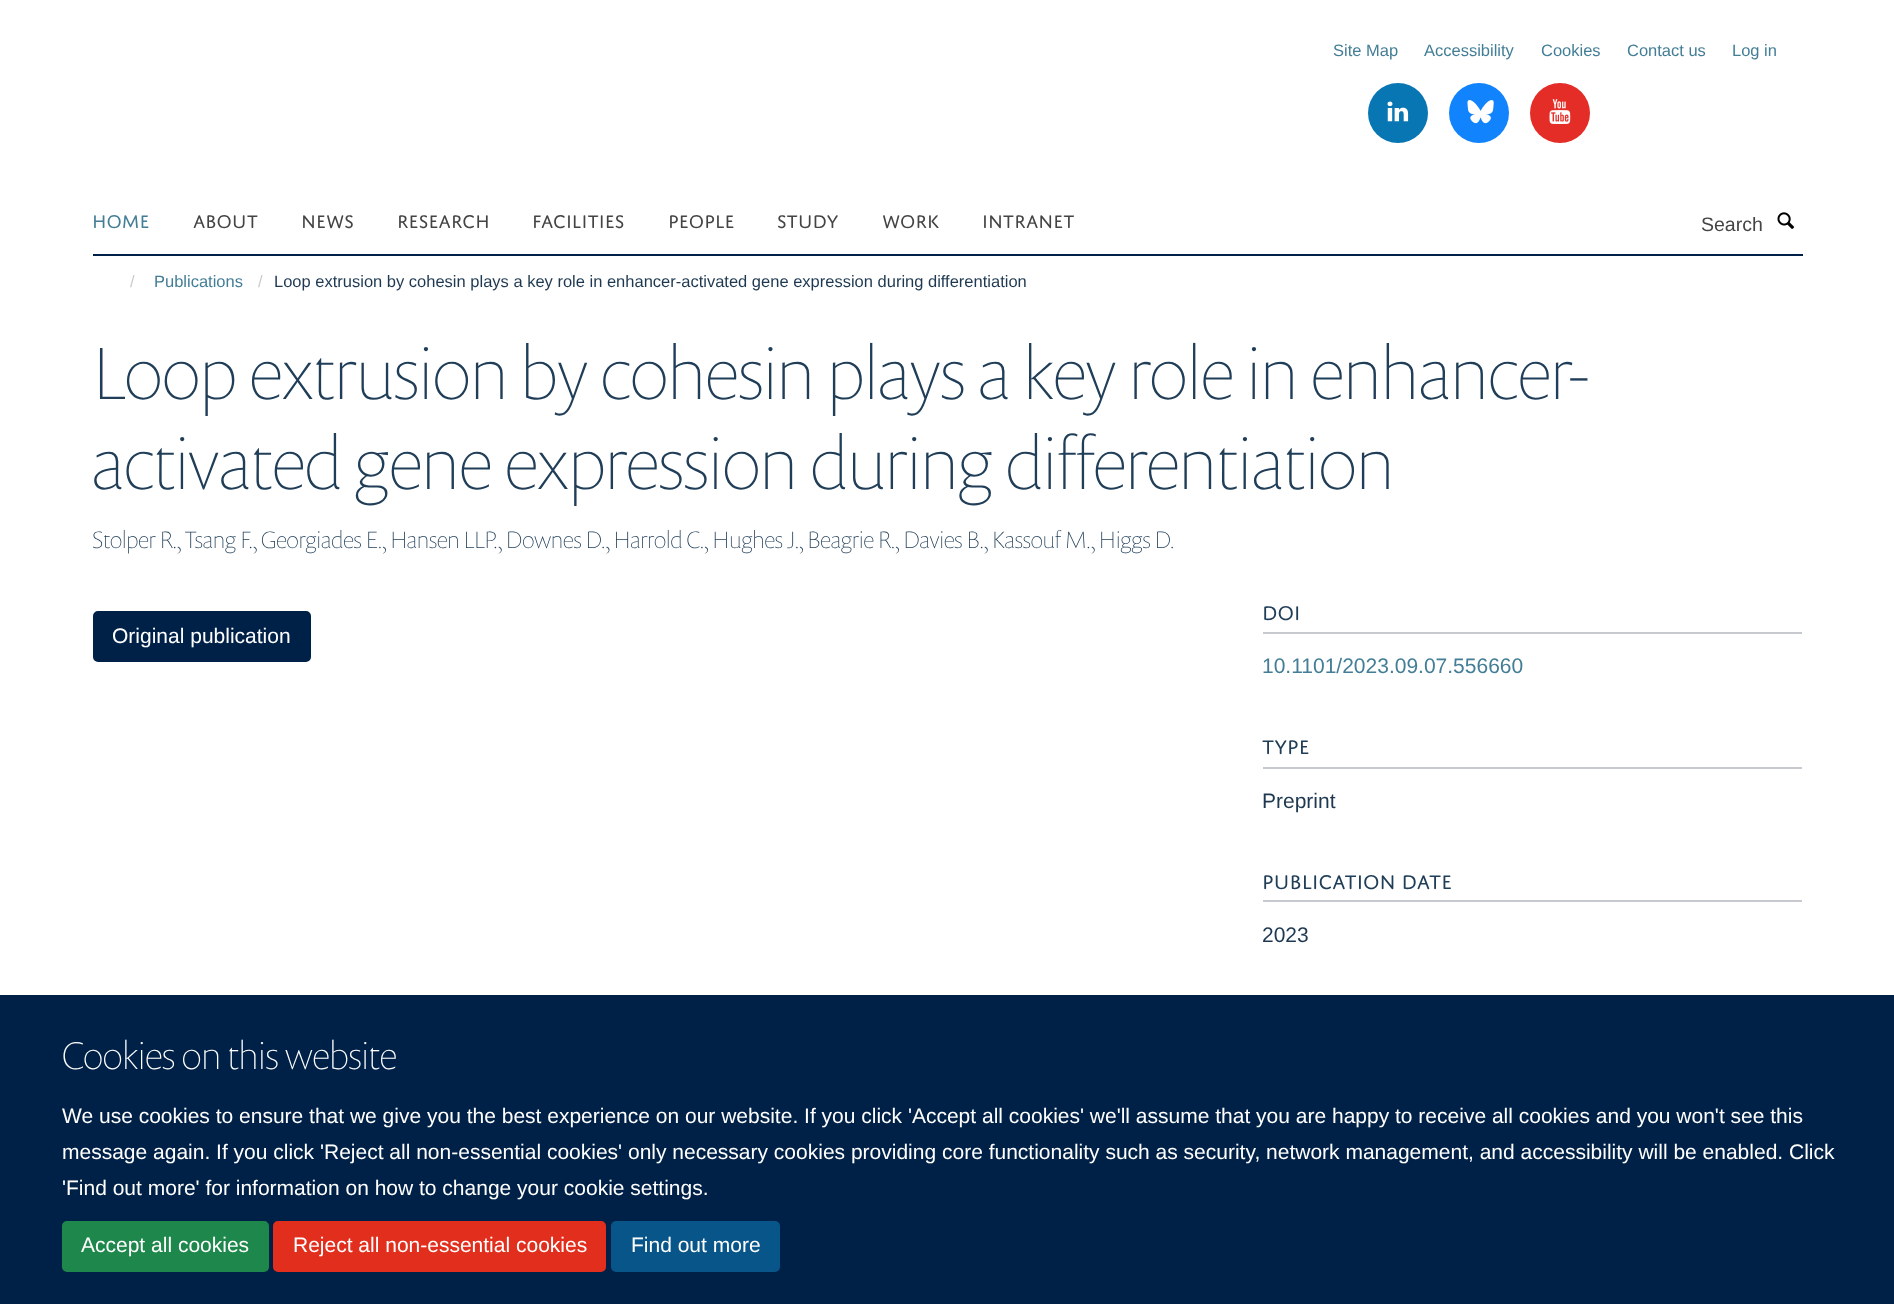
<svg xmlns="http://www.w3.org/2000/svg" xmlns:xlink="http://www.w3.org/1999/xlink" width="1894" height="1304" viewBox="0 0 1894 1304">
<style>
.cls-1{font:16.5px Liberation Sans;fill:#437e96}
.cls-2{font:19.5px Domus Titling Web;fill:#437e96}
.cls-3{font:19.5px Domus Titling Web;fill:#444444}
.cls-4{font:19.5px Liberation Sans;fill:#444444}
.cls-5{font:16.5px Liberation Sans;fill:#cccccc}
.cls-6{font:16.5px Liberation Sans;fill:#1d3850}
.cls-7{font:100 75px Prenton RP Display;fill:#203e58}
.cls-8{font:100 24px Prenton RP Display;fill:#203e58}
.cls-9{font:21px Liberation Sans;fill:#ffffff}
.cls-10{font:21px Domus Titling Web;fill:#203e58}
.cls-11{font:21px Liberation Sans;fill:#437e96}
.cls-12{font:21px Liberation Sans;fill:#1d3850}
.cls-13{font:100 39px Prenton RP Display;fill:#ffffff}
</style>
<rect width="100%" height="100%" fill="#ffffff"/>
<circle fill="#0976b4" cx="1398" cy="113" r="30"/>
<image xlink:href="image0.png" x="1387" y="101" width="22" height="21"/>
<circle fill="#1183fc" cx="1479" cy="113" r="30"/>
<image xlink:href="image1.png" x="1467" y="100" width="27" height="24"/>
<circle fill="#e52d27" cx="1560" cy="113" r="30"/>
<image xlink:href="image2.png" x="1549" y="99" width="22" height="25"/>
<rect fill="#002147" x="93" y="254" width="1710" height="2"/>
<image xlink:href="image3.png" x="1777" y="212" width="17" height="17"/>
<rect fill="#002147" stroke="#002147" stroke-width="2" x="94" y="612" width="216" height="49" rx="4"/>
<rect fill="#c6cacf" x="1263" y="632" width="539" height="2"/>
<rect fill="#c6cacf" x="1263" y="767" width="539" height="2"/>
<rect fill="#c6cacf" x="1263" y="900" width="539" height="2"/>
<rect fill="#002147" x="0" y="995" width="1894" height="309"/>
<rect fill="#1e874b" stroke="#1e874b" stroke-width="2" x="63" y="1222" width="205" height="49" rx="4"/>
<rect fill="#e22e1c" stroke="#e22e1c" stroke-width="2" x="274" y="1222" width="331" height="49" rx="4"/>
<rect fill="#085589" stroke="#085589" stroke-width="2" x="612" y="1222" width="167" height="49" rx="4"/>
<text class="cls-1" x="1333" y="56">Site Map</text>
<text class="cls-1" x="1424" y="56">Accessibility</text>
<text class="cls-1" x="1541" y="56">Cookies</text>
<text class="cls-1" x="1627" y="56">Contact us</text>
<text class="cls-1" x="1732" y="56">Log in</text>
<text class="cls-2" x="92" y="228">HOME</text>
<text class="cls-3" x="193" y="228">ABOUT</text>
<text class="cls-3" x="301" y="228">NEWS</text>
<text class="cls-3" x="397" y="228">RESEARCH</text>
<text class="cls-3" x="532" y="228">FACILITIES</text>
<text class="cls-3" x="668" y="228">PEOPLE</text>
<text class="cls-3" x="777" y="228">STUDY</text>
<text class="cls-3" x="882" y="228">WORK</text>
<text class="cls-3" x="982" y="228">INTRANET</text>
<text class="cls-4" x="1701" y="231">Search</text>
<text class="cls-5" x="130" y="287">/</text>
<text class="cls-1" x="154" y="287">Publications</text>
<text class="cls-5" x="258" y="287">/</text>
<text class="cls-6" x="274" y="287">Loop extrusion by cohesin plays a key role in enhancer-activated gene expression during differentiation</text>
<text class="cls-7"><tspan x="92" y="399">Loop extrusion by cohesin plays a key role in enhancer-</tspan><tspan x="92" y="489">activated gene expression during differentiation</tspan></text>
<text class="cls-8" x="92" y="548">Stolper R., Tsang F., Georgiades E., Hansen LLP., Downes D., Harrold C., Hughes J., Beagrie R., Davies B., Kassouf M., Higgs D.</text>
<text class="cls-9" x="112" y="643">Original publication</text>
<text class="cls-10" x="1262" y="620">DOI</text>
<text class="cls-11" x="1262" y="673">10.1101/2023.09.07.556660</text>
<text class="cls-10" x="1262" y="754">TYPE</text>
<text class="cls-12" x="1262" y="808">Preprint</text>
<text class="cls-10" x="1262" y="889">PUBLICATION DATE</text>
<text class="cls-12" x="1262" y="942">2023</text>
<text class="cls-13" x="62" y="1069">Cookies on this website</text>
<text class="cls-9"><tspan x="62" y="1123">We use cookies to ensure that we give you the best experience on our website. If you click 'Accept all cookies' we'll assume that you are happy to receive all cookies and you won't see this</tspan><tspan x="62" y="1159">message again. If you click 'Reject all non-essential cookies' only necessary cookies providing core functionality such as security, network management, and accessibility will be enabled. Click</tspan><tspan x="62" y="1195">'Find out more' for information on how to change your cookie settings.</tspan></text>
<text class="cls-9" x="81" y="1252">Accept all cookies</text>
<text class="cls-9" x="293" y="1252">Reject all non-essential cookies</text>
<text class="cls-9" x="631" y="1252">Find out more</text>
</svg>
